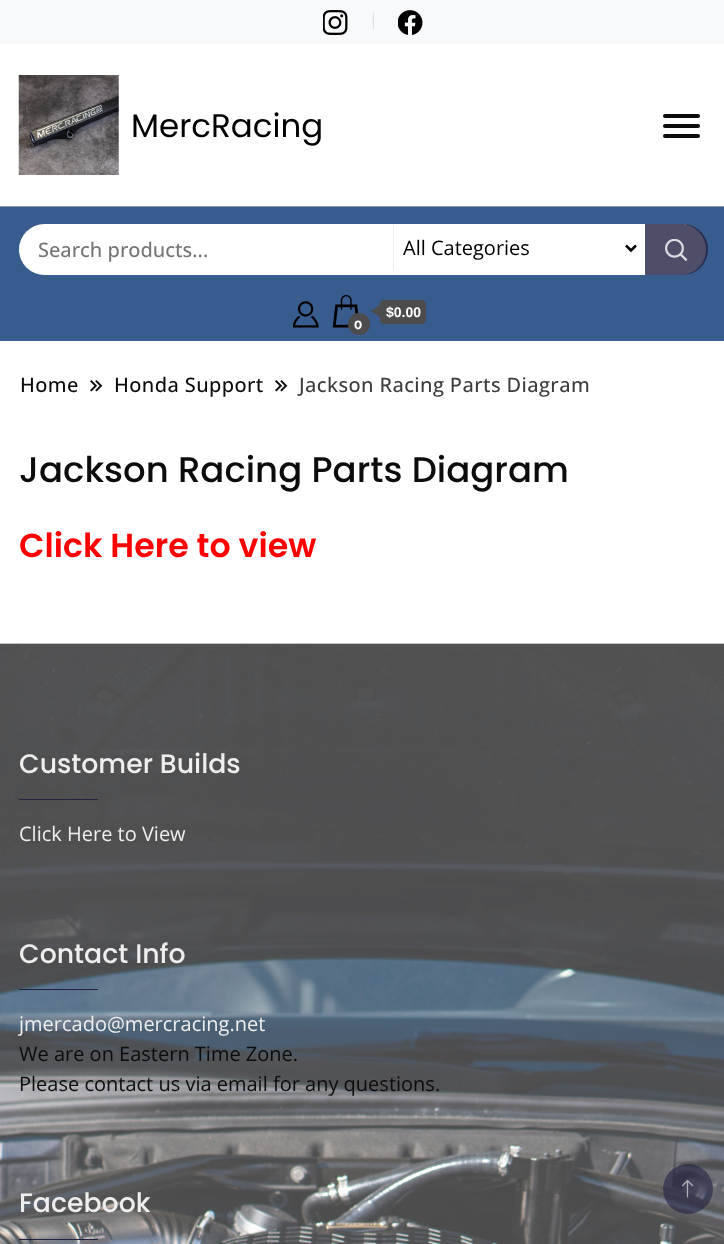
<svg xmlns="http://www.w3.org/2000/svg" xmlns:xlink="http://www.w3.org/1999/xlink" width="724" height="1244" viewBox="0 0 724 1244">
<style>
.cls-1{font:16px Open Sans;fill:#dddddd}
.cls-2{font:32.5px Poppins;fill:#000000}
.cls-3{font:500 20px Open Sans;fill:#757575}
.cls-4{font:20px Open Sans;fill:#000000}
.cls-5{font:bold 14px Liberation Sans;fill:#ffffff}
.cls-6{font:bold 12px Montserrat;fill:#ffffff}
.cls-7{font:500 20px Open Sans;letter-spacing:0.4px;fill:#0c0c0c}
.cls-8{font:500 20px Open Sans;letter-spacing:0.4px;fill:#3d3d3d}
.cls-9{font:500 35.5px Poppins;fill:#0c0c0c}
.cls-10{font:600 33.25px Poppins;fill:#ff0000}
.cls-11{font:500 26.75px Poppins;fill:#eeeeee}
.cls-12{font:20px Open Sans;fill:#eeeeee}
.cls-13{font:20px Open Sans;fill:#0c0c0c}
</style>
<rect width="100%" height="100%" fill="#ffffff"/>
<rect fill="#f8f9fa" x="0" y="0" width="724" height="44"/>
<image xlink:href="image0.png" x="323" y="10" width="25" height="25"/>
<image xlink:href="image1.png" x="398" y="10" width="25" height="25"/>
<image xlink:href="image2.png" x="18" y="75" width="101" height="100"/>
<rect fill="#0c0c0c" x="663" y="114" width="37" height="4" rx="2"/>
<rect fill="#0c0c0c" x="663" y="124" width="37" height="4" rx="2"/>
<rect fill="#0c0c0c" x="663" y="134" width="37" height="4" rx="2"/>
<rect fill="#395c8e" x="0" y="207" width="724" height="134"/>
<rect fill="#8597b1" x="0" y="206" width="724" height="1"/>
<rect fill="#ffffff" x="19" y="224" width="687" height="51" rx="25.5"/>
<rect fill="#ececec" x="393" y="224" width="1" height="47"/>
<path fill="none" stroke="#000000" stroke-width="2.5" d="M626 245.5L631 250.5L636 245.5"/>
<path fill="#232242" fill-opacity="0.8" d="M645 224H682.5C696.5 224 708 235.5 708 249.5C708 263.5 696.5 275 682.5 275H645Z"/>
<image xlink:href="image3.png" x="665" y="239" width="23" height="22"/>
<image xlink:href="image4.png" x="293" y="301" width="26" height="27"/>
<image xlink:href="image5.png" x="332" y="295" width="27" height="33"/>
<rect fill="#4c4c4c" x="380" y="300" width="46" height="24" rx="4"/>
<path fill="#4c4c4c" d="M380 305V317.5L371 311Z"/>
<circle fill="#4c4c4c" cx="359" cy="324" r="11"/>
<image xlink:href="image6.png" x="90" y="380" width="13" height="12"/>
<image xlink:href="image6.png" x="275" y="380" width="13" height="12"/>
<image xlink:href="image7.png" x="0" y="643" width="724" height="601"/>
<rect fill="#232242" x="19" y="799" width="79" height="1"/>
<rect fill="#232242" x="19" y="989" width="79" height="1"/>
<rect fill="#232242" x="19" y="1239" width="79" height="1"/>
<circle fill="#232242" fill-opacity="0.6" cx="688" cy="1189" r="25"/>
<image xlink:href="image8.png" x="681" y="1180" width="13" height="18"/>
<text class="cls-1" x="369" y="25">|</text>
<text class="cls-2" x="131" y="137">MercRacing</text>
<text class="cls-3" x="38" y="257">Search products...</text>
<text class="cls-4" x="403" y="255">All Categories</text>
<text class="cls-5" x="386" y="317">$0.00</text>
<text class="cls-6" x="354" y="329">0</text>
<text class="cls-7" x="20" y="392">Home</text>
<text class="cls-7" x="114" y="392">Honda Support</text>
<text class="cls-8" x="299" y="392">Jackson Racing Parts Diagram</text>
<text class="cls-9" x="19" y="482">Jackson Racing Parts Diagram</text>
<text class="cls-10" x="19" y="557">Click Here to view</text>
<text class="cls-11" x="19" y="773">Customer Builds</text>
<text class="cls-12" x="19" y="841">Click Here to View</text>
<text class="cls-11" x="19" y="963">Contact Info</text>
<text class="cls-12" x="19" y="1031">jmercado@mercracing.net</text>
<text class="cls-13"><tspan x="19" y="1061">We are on Eastern Time Zone.</tspan><tspan x="19" y="1091">Please contact us via email for any questions.</tspan></text>
<text class="cls-11" x="19" y="1212">Facebook</text>
</svg>
